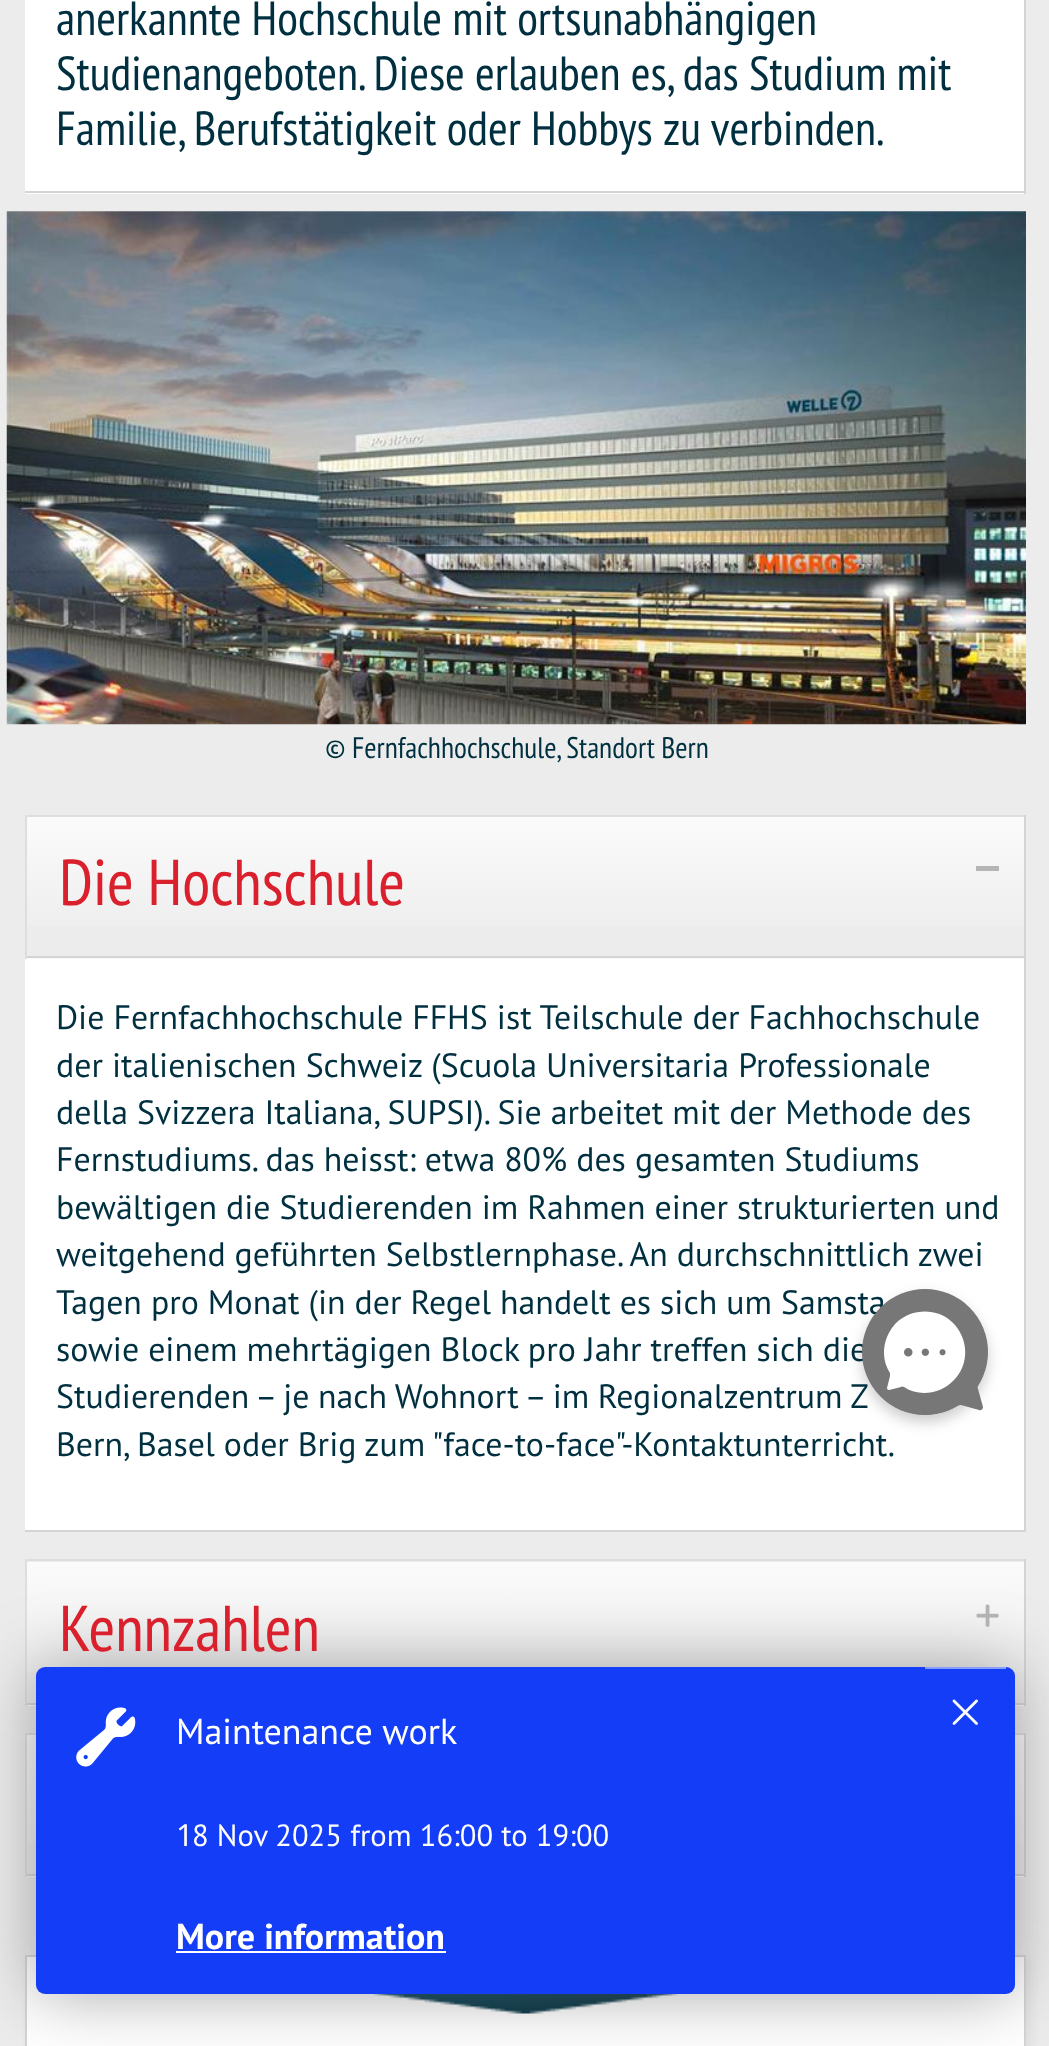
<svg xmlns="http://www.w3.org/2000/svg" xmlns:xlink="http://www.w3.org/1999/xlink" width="1049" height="2046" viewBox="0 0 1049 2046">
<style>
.cls-1{font:47.9px PT Sans Narrow;fill:#003040}
.cls-2{font:29.75px PT Sans Narrow;fill:#003040}
.cls-3{font:64.75px PT Sans Narrow;fill:#da202c}
.cls-4{font:33.85px PT Sans;fill:#003040}
.cls-5{font:36px PT Sans;fill:#ffffff}
.cls-6{font:30.6px Noto Sans;fill:#ffffff}
.cls-7{font:30.6px PT Sans;fill:#ffffff}
.cls-8{font:bold 36px PT Sans;fill:#ffffff}
</style>
<defs>
<linearGradient id="g1" gradientUnits="userSpaceOnUse" x1="525" y1="817" x2="525" y2="956"><stop offset="0" stop-color="#fbfbfb"/><stop offset="1" stop-color="#ebebeb"/></linearGradient>
<linearGradient id="g2" gradientUnits="userSpaceOnUse" x1="525" y1="956" x2="525" y2="1096"><stop offset="0" stop-color="#fbfbfb"/><stop offset="1" stop-color="#ebebeb"/></linearGradient>
<linearGradient id="g3" gradientUnits="userSpaceOnUse" x1="525" y1="1562" x2="525" y2="1703"><stop offset="0" stop-color="#fbfbfb"/><stop offset="1" stop-color="#ebebeb"/></linearGradient>
<linearGradient id="g4" gradientUnits="userSpaceOnUse" x1="525" y1="1703" x2="525" y2="1845"><stop offset="0" stop-color="#fbfbfb"/><stop offset="1" stop-color="#ebebeb"/></linearGradient>
<linearGradient id="g5" gradientUnits="userSpaceOnUse" x1="525" y1="1735" x2="525" y2="1874"><stop offset="0" stop-color="#fbfbfb"/><stop offset="1" stop-color="#ebebeb"/></linearGradient>
<linearGradient id="g6" gradientUnits="userSpaceOnUse" x1="525" y1="1874" x2="525" y2="2014"><stop offset="0" stop-color="#fbfbfb"/><stop offset="1" stop-color="#ebebeb"/></linearGradient>
</defs>
<rect width="100%" height="100%" fill="#ececec"/>
<rect fill="#ffffff" x="25" y="0" width="999" height="194"/>
<rect fill="#d4d4d4" x="1024" y="0" width="2" height="194"/>
<rect fill="#d4d4d4" x="25" y="191" width="1001" height="2"/>
<image xlink:href="image0.png" x="6" y="211" width="1020" height="514"/>
<rect fill="url(#g1)" x="27" y="817" width="997" height="109"/>
<rect fill="url(#g2)" x="25" y="958" width="1001" height="1"/>
<rect fill="#dedede" x="25" y="815" width="1001" height="2"/>
<rect fill="#d4d4d4" x="1024" y="815" width="2" height="144"/>
<rect fill="#d4d4d4" x="25" y="956" width="1001" height="2"/>
<rect fill="#dedede" x="25" y="815" width="2" height="144"/>
<rect fill="#b5b5b5" x="976" y="866" width="23" height="5"/>
<rect fill="#ffffff" x="25" y="959" width="999" height="571"/>
<rect fill="#d4d4d4" x="1024" y="959" width="2" height="573"/>
<rect fill="#d4d4d4" x="25" y="1530" width="1001" height="2"/>
<rect fill="url(#g3)" x="27" y="1562" width="997" height="110"/>
<rect fill="url(#g4)" x="25" y="1705" width="1001" height="1"/>
<rect fill="#dedede" x="25" y="1559" width="1001" height="2"/>
<rect fill="#d4d4d4" x="1024" y="1559" width="2" height="147"/>
<rect fill="#d4d4d4" x="25" y="1703" width="1001" height="2"/>
<rect fill="#dedede" x="25" y="1559" width="2" height="147"/>
<image xlink:href="image1.png" x="976" y="1604" width="23" height="23"/>
<rect fill="url(#g5)" x="27" y="1735" width="997" height="109"/>
<rect fill="url(#g6)" x="25" y="1876" width="1001" height="1"/>
<rect fill="#dedede" x="25" y="1733" width="1001" height="2"/>
<rect fill="#d4d4d4" x="1024" y="1733" width="2" height="144"/>
<rect fill="#d4d4d4" x="25" y="1874" width="1001" height="2"/>
<rect fill="#dedede" x="25" y="1733" width="2" height="144"/>
<rect fill="#d3d3d3" fill-opacity="0.5" filter="blur(4.5px)" x="29" y="1960" width="1002" height="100"/>
<rect fill="#ffffff" stroke="#d4d4d4" stroke-width="2" x="26" y="1956" width="999" height="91"/>
<image xlink:href="image2.png" x="373" y="1994" width="305" height="20"/>
<rect fill="#000000" fill-opacity="0.2" filter="blur(7px)" x="862" y="1296" width="126" height="126" rx="63"/>
<rect fill="#696969" fill-opacity="0.58" filter="blur(34px)" x="36" y="1667" width="979" height="327" rx="9"/>
<rect fill="#133df6" x="36" y="1667" width="979" height="327" rx="9"/>
<rect fill="#899efb" x="925" y="1667" width="81" height="2"/>
<image xlink:href="image4.png" x="952" y="1699" width="26" height="26"/>
<image xlink:href="image5.png" x="76" y="1707" width="60" height="60"/>
<rect fill="#ffffff" x="176" y="1951" width="270" height="2"/>
<text class="cls-1"><tspan x="56" y="35">anerkannte Hochschule mit ortsunabhängigen</tspan><tspan x="56" y="90">Studienangeboten. Diese erlauben es, das Studium mit</tspan><tspan x="56" y="145">Familie, Berufstätigkeit oder Hobbys zu verbinden.</tspan></text>
<text class="cls-2" x="325" y="758">© Fernfachhochschule, Standort Bern</text>
<text class="cls-3" x="59" y="905">Die Hochschule</text>
<text class="cls-4"><tspan x="56" y="1029">Die Fernfachhochschule FFHS ist Teilschule der Fachhochschule</tspan><tspan x="56" y="1077">der italienischen Schweiz (Scuola Universitaria Professionale</tspan><tspan x="56" y="1124">della Svizzera Italiana, SUPSI). Sie arbeitet mit der Methode des</tspan><tspan x="56" y="1171">Fernstudiums. das heisst: etwa 80% des gesamten Studiums</tspan><tspan x="56" y="1219">bewältigen die Studierenden im Rahmen einer strukturierten und</tspan><tspan x="56" y="1266">weitgehend geführten Selbstlernphase. An durchschnittlich zwei</tspan><tspan x="56" y="1314">Tagen pro Monat (in der Regel handelt es sich um Samsta</tspan><tspan x="56" y="1361">sowie einem mehrtägigen Block pro Jahr treffen sich die</tspan><tspan x="56" y="1408" word-spacing="-0.5">Studierenden – je nach Wohnort – im Regionalzentrum Z</tspan><tspan x="56" y="1456">Bern, Basel oder Brig zum "face-to-face"-Kontaktunterricht.</tspan></text>
<text class="cls-3" x="59" y="1651">Kennzahlen</text>
<circle fill="#777777" cx="925" cy="1352" r="63"/>
<path fill="#777777" d="M969 1308C944 1283 903 1284 879 1310C857 1334 857 1372 881 1396C901 1417 933 1420 957 1406C958 1405 960 1405 961 1405L979 1410C981 1411 983 1409 983 1407L978 1389C977 1387 978 1386 978 1384C993 1360 990 1329 969 1308Z"/>
<path fill="#ffffff" d="M953 1381C970 1365 969 1338 952 1322C937 1308 912 1308 896 1323C883 1337 880 1357 890 1373C890 1374 890 1375 890 1376L887 1388C887 1389 888 1390 889 1390L901 1387C902 1386 903 1387 904 1387C919 1397 940 1394 953 1381Z"/>
<image xlink:href="image3.png" x="904" y="1348" width="42" height="9"/>
<text class="cls-5" x="176" y="1744">Maintenance work</text>
<text class="cls-6" x="176" y="1846">1</text>
<text class="cls-7" x="192" y="1846">8 Nov 2025 from 16:00 to 19:00</text>
<text class="cls-8" x="176" y="1949">More information</text>
</svg>
